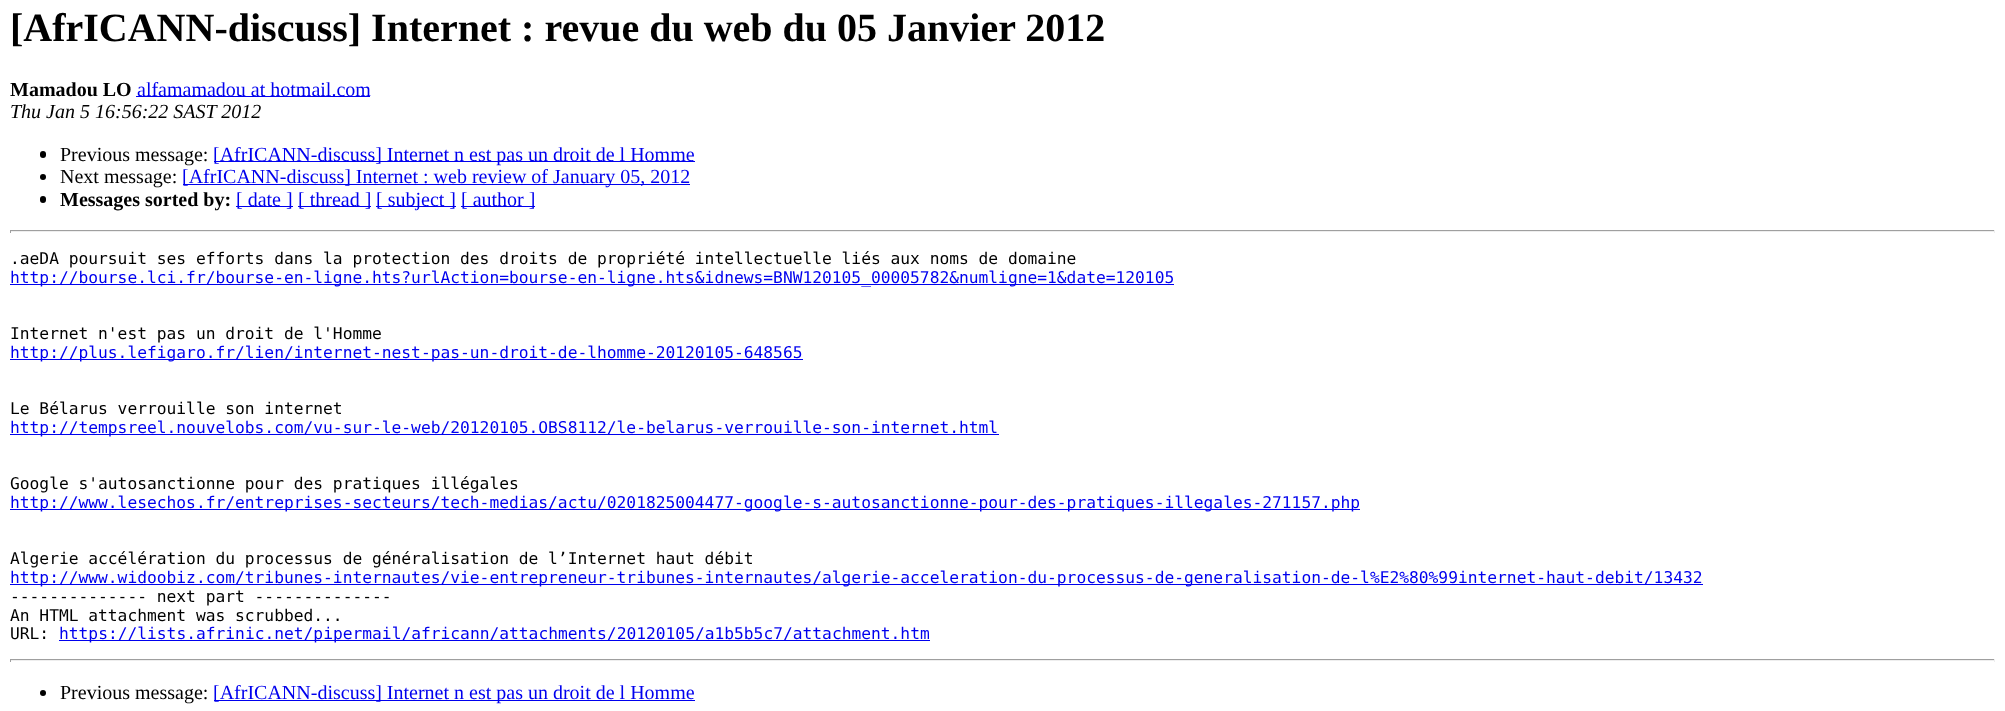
<svg xmlns="http://www.w3.org/2000/svg" xmlns:xlink="http://www.w3.org/1999/xlink" width="2005" height="711" viewBox="0 0 2005 711">
<style>
.cls-1{font:bold 40px Liberation Serif;fill:#000000}
.cls-2{font:bold 20px Liberation Serif;fill:#000000}
.cls-3{font:20px Liberation Serif;fill:#0000ee}
.cls-4{font:italic 20px Liberation Serif;fill:#000000}
.cls-5{font:20px Liberation Serif;fill:#000000}
.cls-6{font:16.25px DejaVu Sans Mono;fill:#000000}
.cls-7{font:16.25px DejaVu Sans Mono;fill:#0000ee}
</style>
<rect width="100%" height="100%" fill="#ffffff"/>
<rect fill="#0000ee" x="136" y="96" width="234" height="1"/>
<rect fill="#000000" x="40" y="151" width="6" height="7" rx="3"/>
<rect fill="#0000ee" x="214" y="161" width="481" height="1"/>
<circle fill="#000000" cx="43" cy="177" r="3"/>
<rect fill="#0000ee" x="183" y="184" width="507" height="1"/>
<rect fill="#000000" x="40" y="196" width="6" height="7" rx="3"/>
<rect fill="#0000ee" x="236" y="206" width="57" height="1"/>
<rect fill="#0000ee" x="298" y="206" width="73" height="1"/>
<rect fill="#0000ee" x="376" y="206" width="80" height="1"/>
<rect fill="#0000ee" x="461" y="206" width="74" height="1"/>
<rect fill="#9f9f9f" x="10" y="230" width="1985" height="1"/>
<rect fill="#eeeeee" x="1994" y="230" width="1" height="3"/>
<rect fill="#eeeeee" x="10" y="231" width="1985" height="1"/>
<rect fill="#9f9f9f" x="10" y="230" width="1" height="3"/>
<rect fill="#0000ee" x="10" y="284" width="1164" height="1"/>
<rect fill="#0000ee" x="10" y="359" width="793" height="1"/>
<rect fill="#0000ee" x="10" y="434" width="989" height="1"/>
<rect fill="#0000ee" x="10" y="509" width="1350" height="1"/>
<rect fill="#0000ee" x="10" y="584" width="1693" height="1"/>
<rect fill="#0000ee" x="59" y="640" width="871" height="1"/>
<rect fill="#9f9f9f" x="10" y="659" width="1985" height="1"/>
<rect fill="#eeeeee" x="1994" y="659" width="1" height="3"/>
<rect fill="#eeeeee" x="10" y="660" width="1985" height="1"/>
<rect fill="#9f9f9f" x="10" y="659" width="1" height="3"/>
<circle fill="#000000" cx="43" cy="693" r="3"/>
<rect fill="#0000ee" x="214" y="700" width="481" height="1"/>
<text class="cls-1" x="10" y="41">[AfrICANN-discuss] Internet : revue du web du 05 Janvier 2012</text>
<text class="cls-2" x="10" y="96">Mamadou LO</text>
<text class="cls-3" x="137" y="96">alfamamadou at hotmail.com</text>
<text class="cls-4" x="10" y="118">Thu Jan 5 16:56:22 SAST 2012</text>
<text class="cls-5" x="60" y="161">Previous message:</text>
<text class="cls-3" x="213" y="161">[AfrICANN-discuss] Internet n est pas un droit de l Homme</text>
<text class="cls-5" x="60" y="183">Next message:</text>
<text class="cls-3" x="182" y="183">[AfrICANN-discuss] Internet : web review of January 05, 2012</text>
<text class="cls-2" x="60" y="206">Messages sorted by:</text>
<text class="cls-3" x="236" y="206">[ date ]</text>
<text class="cls-3" x="298" y="206">[ thread ]</text>
<text class="cls-3" x="376" y="206">[ subject ]</text>
<text class="cls-3" x="461" y="206">[ author ]</text>
<text class="cls-6" x="10" y="264">.aeDA poursuit ses efforts dans la protection des droits de propriété intellectuelle liés aux noms de domaine</text>
<text class="cls-7" x="10" y="283">http://bourse.lci.fr/bourse-en-ligne.hts?urlAction=bourse-en-ligne.hts&amp;idnews=BNW120105_00005782&amp;numligne=1&amp;date=120105</text>
<text class="cls-6" x="10" y="339">Internet n'est pas un droit de l'Homme</text>
<text class="cls-7" x="10" y="358">http://plus.lefigaro.fr/lien/internet-nest-pas-un-droit-de-lhomme-20120105-648565</text>
<text class="cls-6" x="10" y="414">Le Bélarus verrouille son internet</text>
<text class="cls-7" x="10" y="433">http://tempsreel.nouvelobs.com/vu-sur-le-web/20120105.OBS8112/le-belarus-verrouille-son-internet.html</text>
<text class="cls-6" x="10" y="489">Google s'autosanctionne pour des pratiques illégales</text>
<text class="cls-7" x="10" y="508">http://www.lesechos.fr/entreprises-secteurs/tech-medias/actu/0201825004477-google-s-autosanctionne-pour-des-pratiques-illegales-271157.php</text>
<text class="cls-6" x="10" y="564">Algerie accélération du processus de généralisation de l’Internet haut débit</text>
<text class="cls-7" x="10" y="583">http://www.widoobiz.com/tribunes-internautes/vie-entrepreneur-tribunes-internautes/algerie-acceleration-du-processus-de-generalisation-de-l%E2%80%99internet-haut-debit/13432</text>
<text class="cls-6"><tspan x="10" y="602">-------------- next part --------------</tspan><tspan x="10" y="621">An HTML attachment was scrubbed...</tspan><tspan x="10" y="639">URL:</tspan></text>
<text class="cls-7" x="59" y="639">https://lists.afrinic.net/pipermail/africann/attachments/20120105/a1b5b5c7/attachment.htm</text>
<text class="cls-5" x="60" y="699">Previous message:</text>
<text class="cls-3" x="213" y="699">[AfrICANN-discuss] Internet n est pas un droit de l Homme</text>
</svg>
